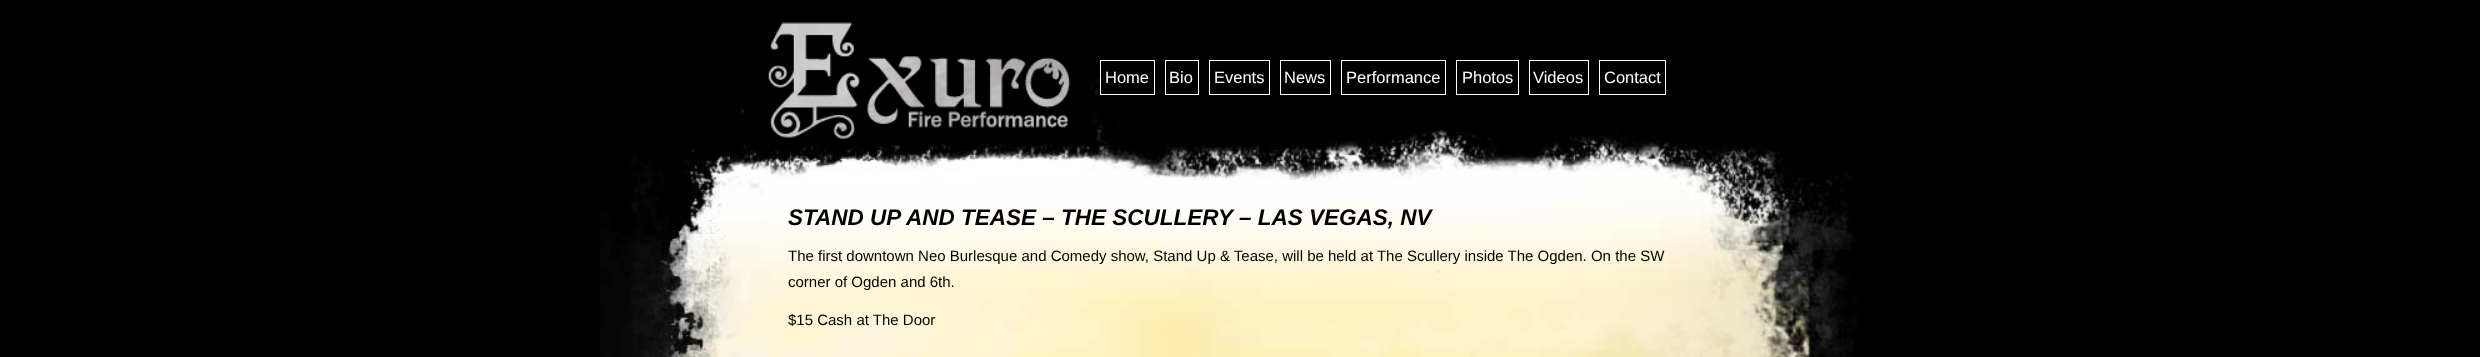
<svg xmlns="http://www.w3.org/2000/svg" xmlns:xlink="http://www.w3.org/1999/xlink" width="2480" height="357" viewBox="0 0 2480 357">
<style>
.cls-1{font:16.5px Liberation Sans;fill:#ffffff}
.cls-2{font:italic bold 22.5px Liberation Sans;fill:#000000}
.cls-3{font:15px Liberation Sans;fill:#000000}
</style>
<rect width="100%" height="100%" fill="#000000"/>
<image xlink:href="image0.png" x="600" y="0" width="1257" height="357"/>
<image xlink:href="image1.png" x="610" y="0" width="1246" height="357"/>
<image xlink:href="image2.png" x="768" y="22" width="307" height="122"/>
<rect fill="none" stroke="#ffffff" x="1100.5" y="60.5" width="54" height="34"/>
<rect fill="none" stroke="#ffffff" x="1165.5" y="60.5" width="33" height="34"/>
<rect fill="none" stroke="#ffffff" x="1209.5" y="60.5" width="60" height="34"/>
<rect fill="none" stroke="#ffffff" x="1280.5" y="60.5" width="50" height="34"/>
<rect fill="none" stroke="#ffffff" x="1341.5" y="60.5" width="104" height="34"/>
<rect fill="none" stroke="#ffffff" x="1456.5" y="60.5" width="62" height="34"/>
<rect fill="none" stroke="#ffffff" x="1529.5" y="60.5" width="59" height="34"/>
<rect fill="none" stroke="#ffffff" x="1599.5" y="60.5" width="66" height="34"/>
<text class="cls-1" x="1105" y="83">Home</text>
<text class="cls-1" x="1169" y="83">Bio</text>
<text class="cls-1" x="1214" y="83">Events</text>
<text class="cls-1" x="1284" y="83">News</text>
<text class="cls-1" x="1346" y="83">Performance</text>
<text class="cls-1" x="1462" y="83">Photos</text>
<text class="cls-1" x="1533" y="83">Videos</text>
<text class="cls-1" x="1604" y="83">Contact</text>
<text class="cls-2" x="788" y="225">STAND UP AND TEASE – THE SCULLERY – LAS VEGAS, NV</text>
<text class="cls-3"><tspan x="788" y="261">The first downtown Neo Burlesque and Comedy show, Stand Up &amp; Tease, will be held at The Scullery inside The Ogden. On the SW</tspan><tspan x="788" y="287">corner of Ogden and 6th.</tspan></text>
<text class="cls-3" x="788" y="325">$15 Cash at The Door</text>
</svg>
